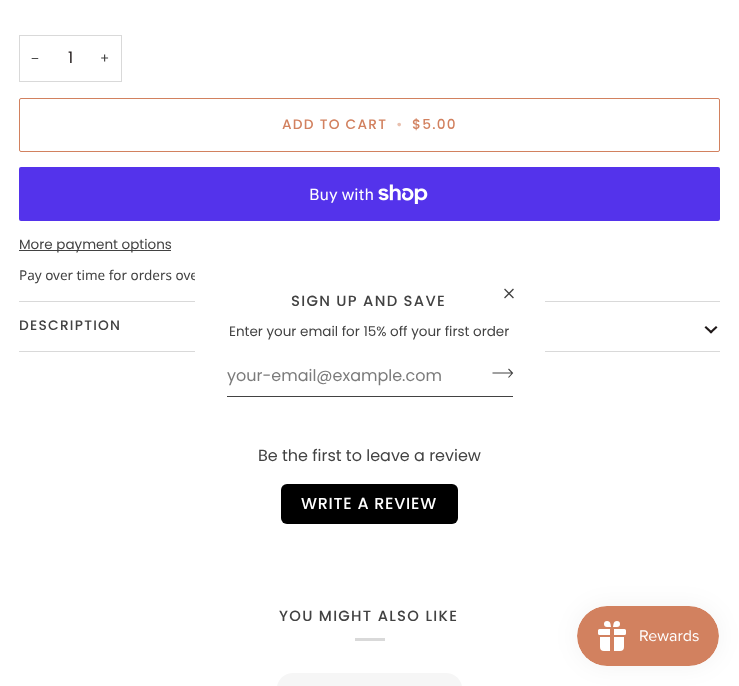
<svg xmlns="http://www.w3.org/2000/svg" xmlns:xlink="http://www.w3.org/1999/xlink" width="739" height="686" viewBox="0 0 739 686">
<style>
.cls-1{font:13.5px Liberation Sans;fill:#424242}
.cls-2{font:16px Poppins;fill:#1f1919}
.cls-3{font:13.5px Poppins;fill:#424242}
.cls-4{font:500 13.75px Poppins;letter-spacing:1.25px;fill:#d2815f}
.cls-5{font:500 13.75px Poppins;letter-spacing:1.25px;fill:#e9c0af}
.cls-6{font:16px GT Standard;fill:#ffffff}
.cls-7{font:13.5px Noto Sans;fill:#424242}
.cls-8{font:500 13.75px Poppins;letter-spacing:1.25px;fill:#424242}
.cls-9{font:16px Poppins;fill:#424242}
.cls-10{font:500 16px Poppins;letter-spacing:0.75px;fill:#ffffff}
.cls-11{font:500 14.8px Poppins;letter-spacing:1.3px;fill:#424242}
.cls-12{font:16px Poppins;fill:#7b7b7b}
</style>
<rect width="100%" height="100%" fill="#ffffff"/>
<rect fill="none" stroke="#d9d9d9" x="19.5" y="35.5" width="102" height="46"/>
<rect fill="none" stroke="#d2815f" x="19.5" y="98.5" width="700" height="53" rx="1.5"/>
<rect fill="#5433eb" x="19" y="167" width="701" height="54" rx="2"/>
<image xlink:href="image0.png" x="378" y="184" width="50" height="20"/>
<rect fill="#424242" x="19" y="250" width="152" height="1"/>
<rect fill="#d9d9d9" x="19" y="301" width="701" height="1"/>
<rect fill="#d9d9d9" x="19" y="351" width="701" height="1"/>
<path fill="#1f1919" d="M709.5 332L716 326L717.5 327.5L711 333.5Z"/>
<path fill="#1f1919" d="M704.5 327.5L706 326L712.5 332L711 333.5Z"/>
<rect fill="#000000" x="281" y="484" width="177" height="40" rx="6"/>
<rect fill="#d9d9d9" x="355" y="638" width="30" height="3"/>
<rect fill="#f6f6f6" x="277" y="673" width="185" height="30" rx="16.5"/>
<rect fill="#424242" x="227" y="396" width="286" height="1"/>
<path fill="none" stroke="#424242" stroke-width="1.1" d="M508.5 369L512.5 373L508.5 377.5M492.5 373H512.5"/>
<rect fill="#000000" fill-opacity="0.05" filter="blur(12.5px)" x="577" y="606" width="142" height="60" rx="30"/>
<image xlink:href="image1.png" x="577" y="606" width="142" height="60"/>
<text class="cls-1" x="31" y="63">−</text>
<text class="cls-2" x="68" y="63">1</text>
<text class="cls-3" x="100" y="63">+</text>
<text class="cls-4" x="282" y="129">ADD TO CART</text>
<text class="cls-5" x="396" y="129">•</text>
<text class="cls-4" x="412" y="129">$5.00</text>
<text class="cls-6" x="309" y="200">Buy with</text>
<text class="cls-3" x="19" y="249">More payment options</text>
<text class="cls-7" x="19" y="280">Pay over time for orders ove</text>
<text class="cls-8" x="19" y="330">DESCRIPTION</text>
<text class="cls-9" x="258" y="461">Be the first to leave a review</text>
<text class="cls-10" x="301" y="509">WRITE A REVIEW</text>
<text class="cls-11" x="279" y="621">YOU MIGHT ALSO LIKE</text>
<rect fill="#ffffff" x="195" y="272" width="350" height="80"/>
<path fill="none" stroke="#424242" stroke-width="1.3" stroke-linecap="square" d="M513 289.5L505 297.5M505 289.5L513 297.5"/>
<text class="cls-11" x="291" y="306">SIGN UP AND SAVE</text>
<text class="cls-3" x="229" y="336">Enter your email for 15% off your first order</text>
<text class="cls-12" x="227" y="381">your-email@example.com</text>
</svg>
